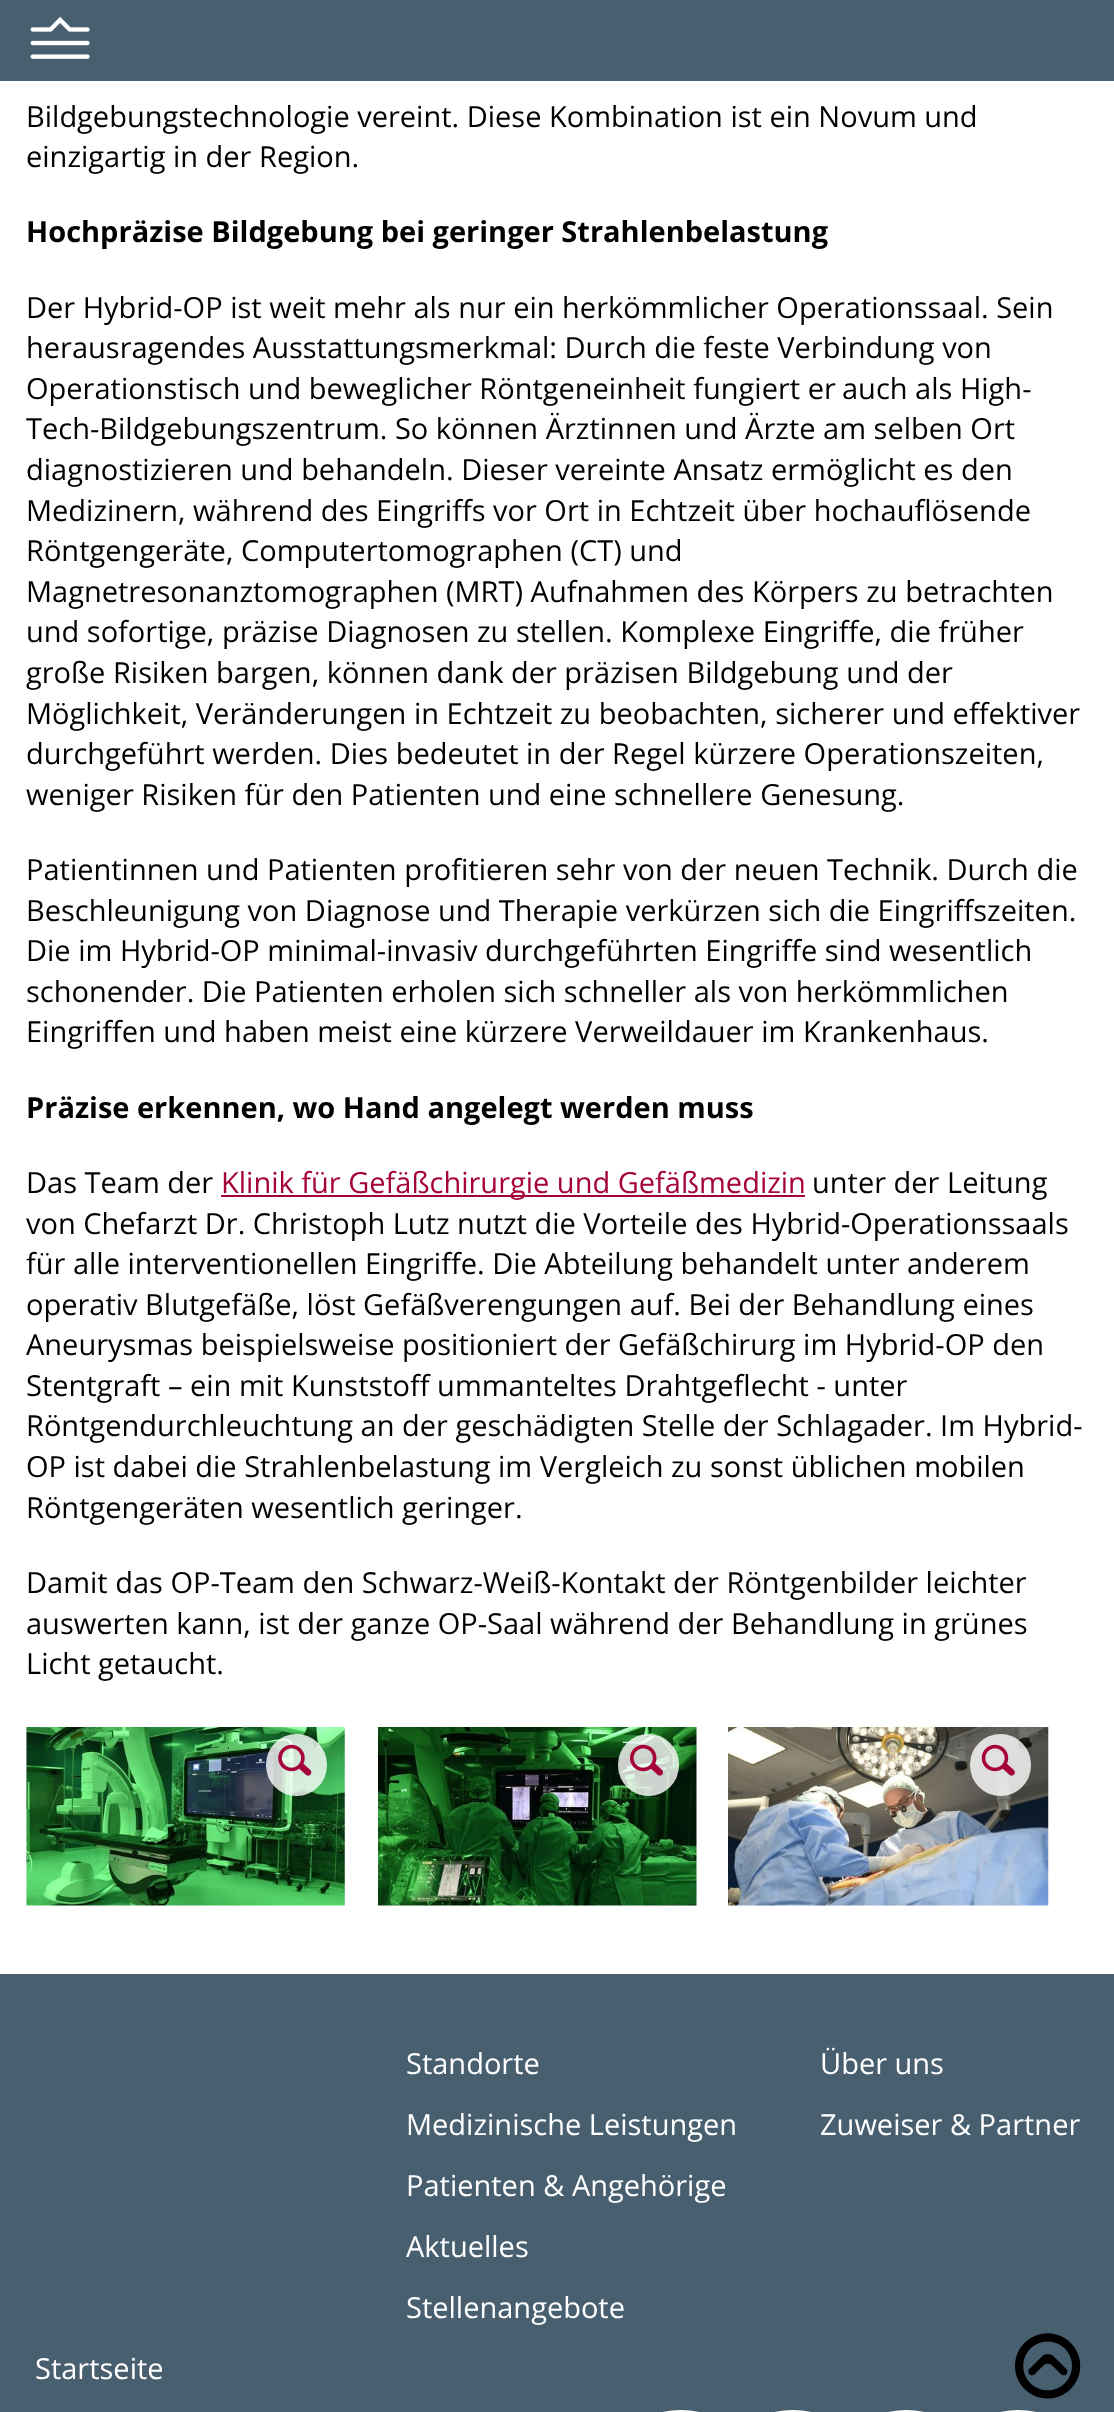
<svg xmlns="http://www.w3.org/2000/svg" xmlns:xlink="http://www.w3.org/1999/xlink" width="1114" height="2412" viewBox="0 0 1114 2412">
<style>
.cls-1{font:29px Open Sans;fill:#000000}
.cls-2{font:bold 29px Open Sans;fill:#000000}
.cls-3{font:29px Open Sans;fill:#a5023b}
.cls-4{font:29px Open Sans;fill:#ffffff}
</style>
<rect width="100%" height="100%" fill="#ffffff"/>
<rect fill="#485f70" x="0" y="0" width="1114" height="81"/>
<image xlink:href="image0.png" x="30" y="16" width="60" height="43"/>
<rect fill="#a5023b" x="221" y="1195" width="584" height="2"/>
<image xlink:href="image1.png" x="26" y="1727" width="319" height="179"/>
<rect fill="#ffffff" fill-opacity="0.8" x="266" y="1734" width="61" height="62" rx="30.5"/>
<image xlink:href="image2.png" x="278" y="1744" width="34" height="32"/>
<image xlink:href="image3.png" x="378" y="1727" width="319" height="179"/>
<rect fill="#ffffff" fill-opacity="0.8" x="618" y="1734" width="61" height="62" rx="30.5"/>
<image xlink:href="image4.png" x="630" y="1744" width="34" height="32"/>
<image xlink:href="image5.png" x="728" y="1727" width="321" height="179"/>
<rect fill="#ffffff" fill-opacity="0.8" x="970" y="1734" width="61" height="62" rx="30.5"/>
<image xlink:href="image6.png" x="981" y="1744" width="34" height="32"/>
<rect fill="#485f70" x="0" y="1974" width="1114" height="438"/>
<rect fill="#ffffff" x="637" y="2410" width="88" height="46" rx="43.5"/>
<rect fill="#ffffff" x="749" y="2410" width="88" height="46" rx="43.5"/>
<rect fill="#ffffff" x="863" y="2410" width="87" height="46" rx="43.5"/>
<rect fill="#ffffff" x="975" y="2410" width="87" height="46" rx="43.5"/>
<image xlink:href="image7.png" x="1015" y="2333" width="66" height="66"/>
<text class="cls-1"><tspan x="26" y="127">Bildgebungstechnologie vereint. Diese Kombination ist ein Novum und</tspan><tspan x="26" y="167">einzigartig in der Region.</tspan></text>
<text class="cls-2" x="26" y="242">Hochpräzise Bildgebung bei geringer Strahlenbelastung</text>
<text class="cls-1"><tspan x="26" y="318">Der Hybrid-OP ist weit mehr als nur ein herkömmlicher Operationssaal. Sein</tspan><tspan x="26" y="358">herausragendes Ausstattungsmerkmal: Durch die feste Verbindung von</tspan><tspan x="26" y="399">Operationstisch und beweglicher Röntgeneinheit fungiert er</tspan></text>
<text class="cls-1" x="842" y="399">auch als High-</text>
<text class="cls-1"><tspan x="26" y="439">Tech-Bildgebungszentrum. So können Ärztinnen und Ärzte am selben Ort</tspan><tspan x="26" y="480">diagnostizieren und behandeln. Dieser vereinte Ansatz ermöglicht es den</tspan><tspan x="26" y="521">Medizinern, während des Eingriffs vor Ort in Echtzeit über hochauflösende</tspan><tspan x="26" y="561">Röntgengeräte, Computertomographen (CT) und</tspan><tspan x="26" y="602">Magnetresonanztomographen (MRT) Aufnahmen des Körpers zu betrachten</tspan><tspan x="26" y="642">und sofortige, präzise Diagnosen zu stellen. Komplexe Eingriffe, die früher</tspan><tspan x="26" y="683">große Risiken bargen, können dank der präzisen Bildgebung und der</tspan><tspan x="26" y="724">Möglichkeit, Veränderungen in Echtzeit zu beobachten, sicherer und effektiver</tspan><tspan x="26" y="764">durchgeführt werden. Dies bedeutet in der Regel kürzere Operationszeiten,</tspan><tspan x="26" y="805">weniger Risiken für den Patienten und eine schnellere Genesung.</tspan></text>
<text class="cls-1"><tspan x="26" y="880">Patientinnen und Patienten profitieren sehr von der neuen Technik. Durch die</tspan><tspan x="26" y="921">Beschleunigung von Diagnose und Therapie verkürzen sich die Eingriffszeiten.</tspan><tspan x="26" y="961">Die im Hybrid-OP minimal-invasiv durchgeführten Eingriffe sind wesentlich</tspan><tspan x="26" y="1002">schonender. Die Patienten erholen sich schneller als von herkömmlichen</tspan><tspan x="26" y="1042">Eingriffen und haben meist eine kürzere Verweildauer im Krankenhaus.</tspan></text>
<text class="cls-2" x="26" y="1118">Präzise erkennen, wo Hand angelegt werden muss</text>
<text class="cls-1" x="26" y="1193">Das Team der</text>
<text class="cls-3" x="221" y="1193">Klinik für Gefäßchirurgie und Gefäßmedizin</text>
<text class="cls-1" x="812" y="1193">unter der Leitung</text>
<text class="cls-1"><tspan x="26" y="1234">von Chefarzt Dr. Christoph Lutz nutzt die Vorteile des Hybrid-Operationssaals</tspan><tspan x="26" y="1274">für alle interventionellen Eingriffe. Die Abteilung behandelt unter anderem</tspan><tspan x="26" y="1315">operativ Blutgefäße, löst Gefäßverengungen auf. Bei der Behandlung eines</tspan><tspan x="26" y="1355">Aneurysmas beispielsweise positioniert der Gefäßchirurg im Hybrid-OP den</tspan><tspan x="26" y="1396">Stentgraft – ein mit Kunststoff ummanteltes Drahtgeflecht - unter</tspan><tspan x="26" y="1436">Röntgendurchleuchtung an der geschädigten Stelle der Schlagader. Im Hybrid-</tspan><tspan x="26" y="1477">OP ist dabei die Strahlenbelastung im Vergleich zu sonst üblichen mobilen</tspan><tspan x="26" y="1518">Röntgengeräten wesentlich geringer.</tspan></text>
<text class="cls-1"><tspan x="26" y="1593">Damit das OP-Team den Schwarz-Weiß-Kontakt der Röntgenbilder leichter</tspan><tspan x="26" y="1634">auswerten kann, ist der ganze OP-Saal während der Behandlung in grünes</tspan><tspan x="26" y="1674">Licht getaucht.</tspan></text>
<text class="cls-4" x="406" y="2074">Standorte</text>
<text class="cls-4" x="406" y="2135">Medizinische Leistungen</text>
<text class="cls-4" x="406" y="2196">Patienten &amp; Angehörige</text>
<text class="cls-4" x="406" y="2257">Aktuelles</text>
<text class="cls-4" x="406" y="2318">Stellenangebote</text>
<text class="cls-4" x="820" y="2074">Über uns</text>
<text class="cls-4" x="820" y="2135">Zuweiser &amp; Partner</text>
<text class="cls-4" x="35" y="2379">Startseite</text>
</svg>
